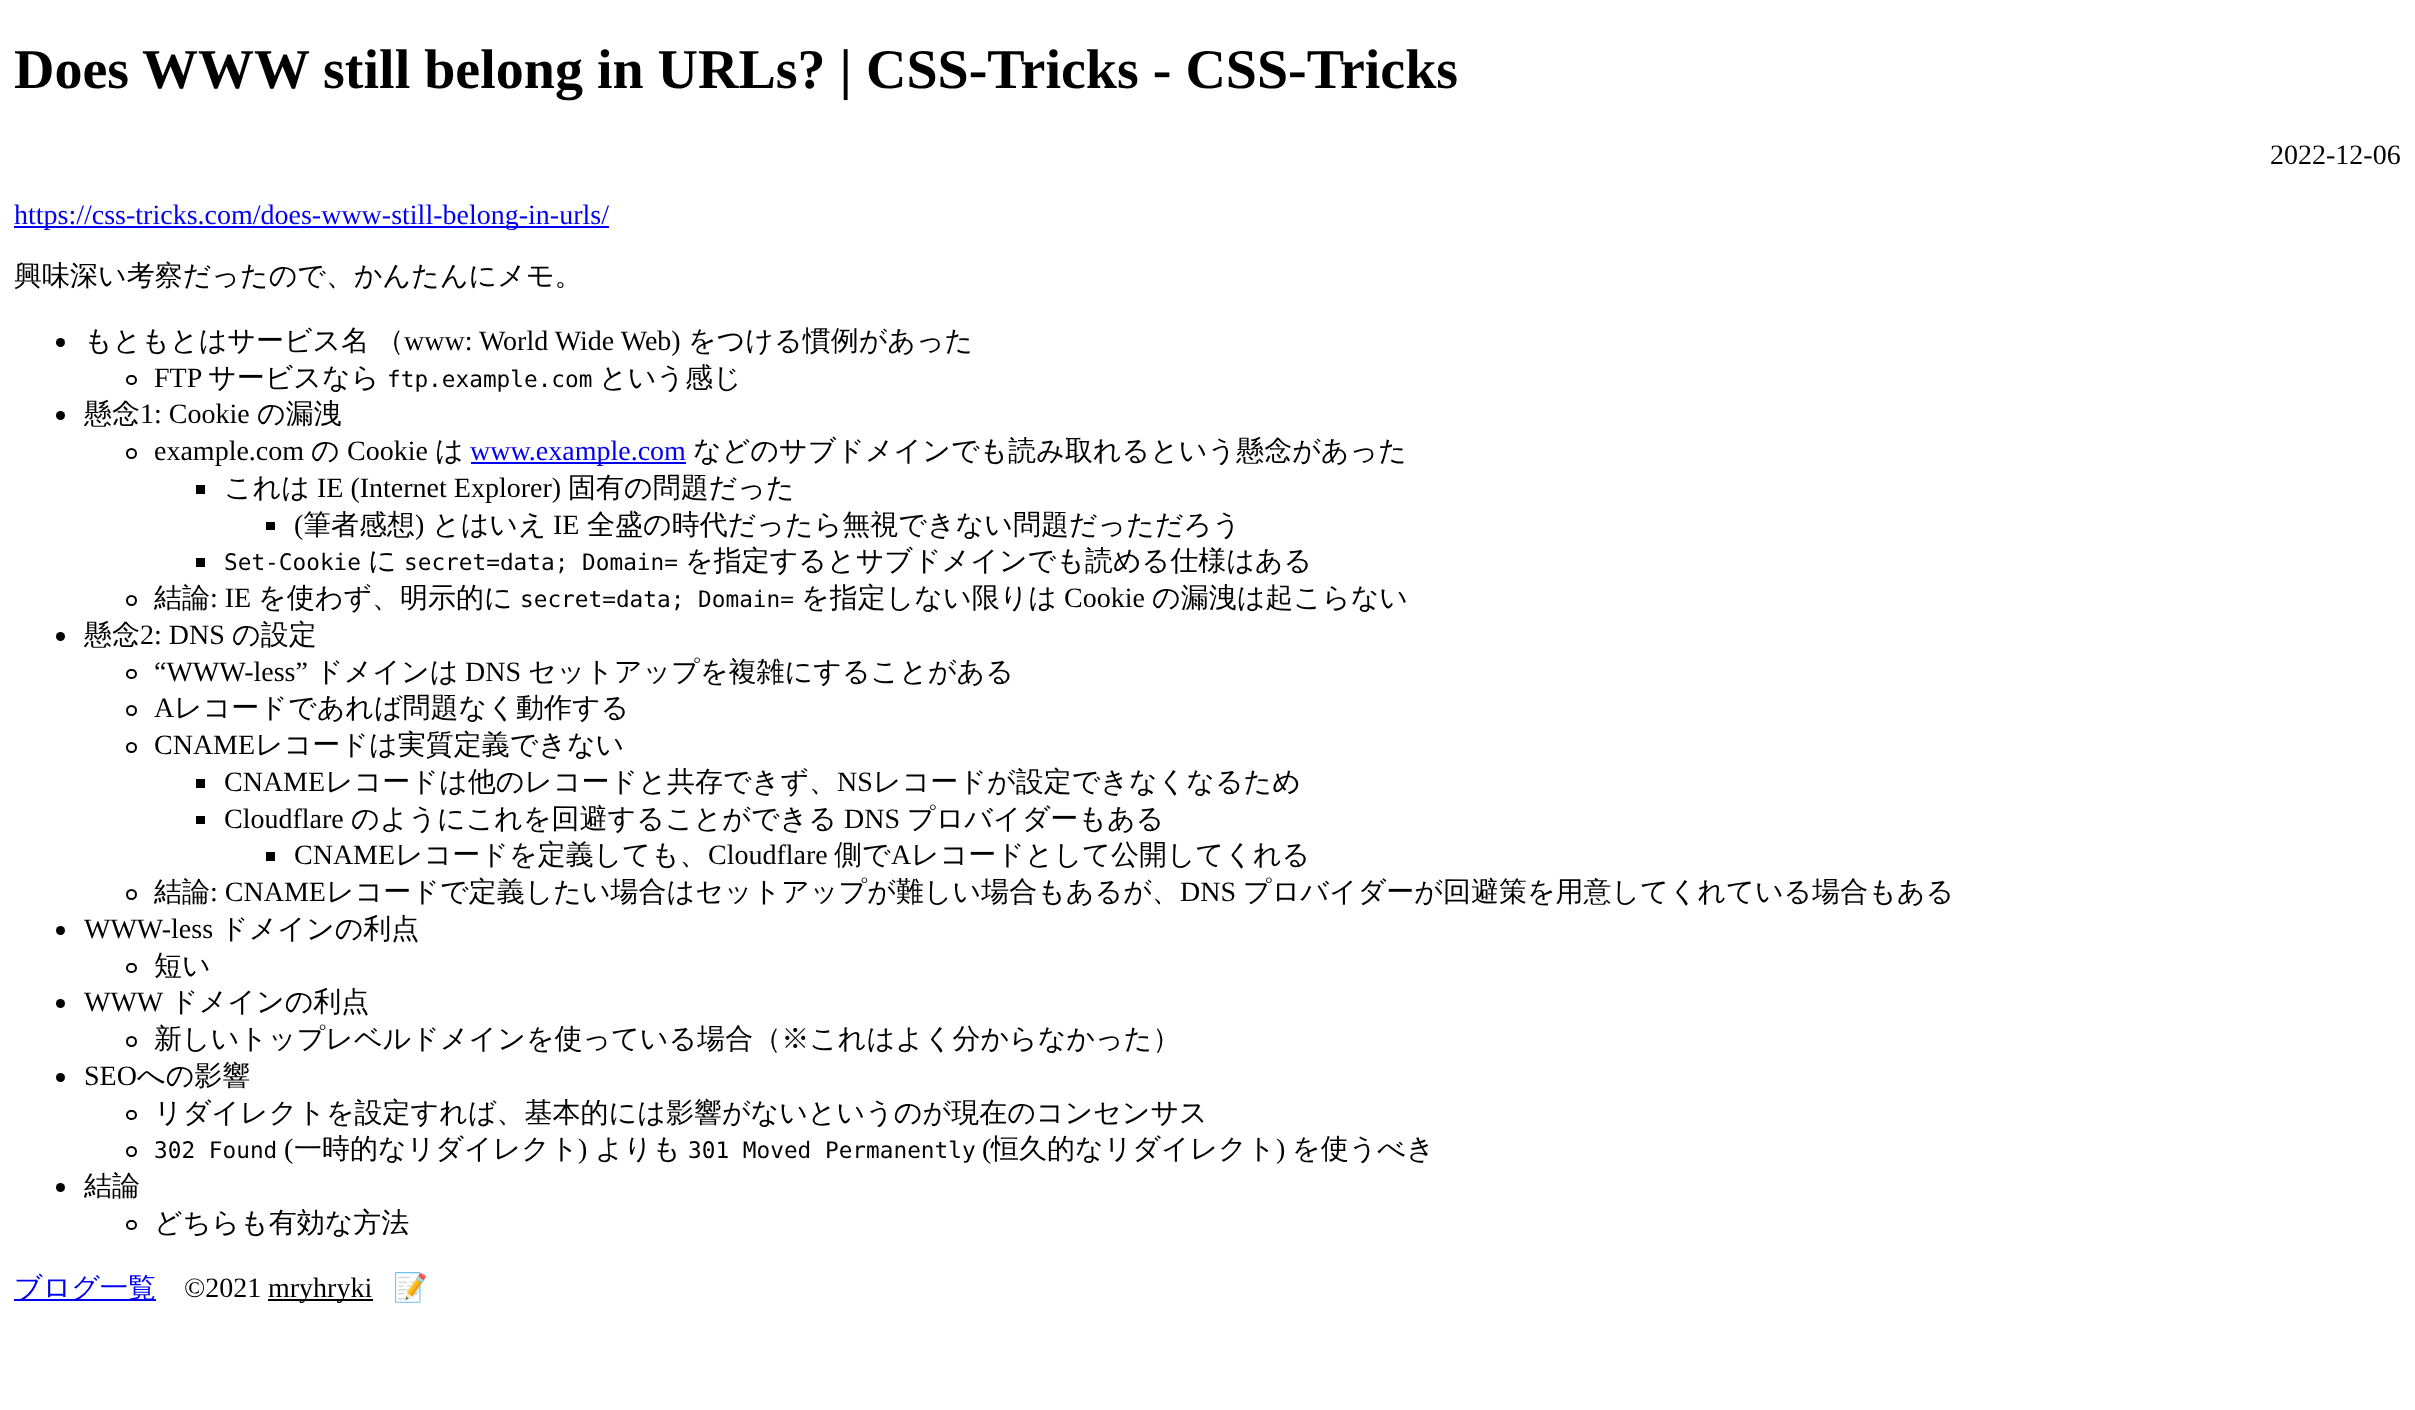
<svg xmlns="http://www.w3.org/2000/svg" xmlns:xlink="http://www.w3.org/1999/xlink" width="2415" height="1410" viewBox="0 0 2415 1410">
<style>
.cls-1{font:bold 56px Liberation Serif;fill:#000000}
.cls-2{font:28px Liberation Serif;fill:#000000}
.cls-3{font:28px Liberation Serif;fill:#0000ee}
.cls-4{font:500 28px WenQuanYi Zen Hei;fill:#000000}
.cls-5{font:22.75px DejaVu Sans Mono;fill:#000000}
.cls-6{font:500 28px WenQuanYi Zen Hei;fill:#0000ee}
.cls-7{font:28px Noto Color Emoji;fill:#0000ee}
</style>
<rect width="100%" height="100%" fill="#ffffff"/>
<rect fill="#0000ee" x="14" y="226" width="595" height="2"/>
<circle fill="#000000" cx="60.5" cy="342.5" r="4.5"/>
<rect fill="none" stroke="#000000" stroke-width="2" x="127" y="376" width="9" height="8" rx="4"/>
<circle fill="#000000" cx="60.5" cy="415.5" r="4.5"/>
<circle fill="none" stroke="#000000" stroke-width="2" cx="131.5" cy="453.5" r="4.5"/>
<rect fill="#0000ee" x="471" y="462" width="215" height="2"/>
<rect fill="#000000" x="196" y="485" width="9" height="9"/>
<rect fill="#000000" x="266" y="522" width="9" height="8"/>
<rect fill="#000000" x="196" y="558" width="9" height="9"/>
<circle fill="none" stroke="#000000" stroke-width="2" cx="131.5" cy="600.5" r="4.5"/>
<circle fill="#000000" cx="60.5" cy="636.5" r="4.5"/>
<rect fill="none" stroke="#000000" stroke-width="2" x="127" y="670" width="9" height="8" rx="4"/>
<circle fill="none" stroke="#000000" stroke-width="2" cx="131.5" cy="710.5" r="4.5"/>
<circle fill="none" stroke="#000000" stroke-width="2" cx="131.5" cy="747.5" r="4.5"/>
<rect fill="#000000" x="196" y="779" width="9" height="9"/>
<rect fill="#000000" x="196" y="816" width="9" height="8"/>
<rect fill="#000000" x="266" y="852" width="9" height="9"/>
<circle fill="none" stroke="#000000" stroke-width="2" cx="131.5" cy="894.5" r="4.5"/>
<circle fill="#000000" cx="60.5" cy="930.5" r="4.5"/>
<rect fill="none" stroke="#000000" stroke-width="2" x="127" y="964" width="9" height="8" rx="4"/>
<circle fill="#000000" cx="60.5" cy="1003.5" r="4.5"/>
<circle fill="none" stroke="#000000" stroke-width="2" cx="131.5" cy="1041.5" r="4.5"/>
<circle fill="#000000" cx="60.5" cy="1077.5" r="4.5"/>
<rect fill="none" stroke="#000000" stroke-width="2" x="127" y="1111" width="9" height="8" rx="4"/>
<circle fill="none" stroke="#000000" stroke-width="2" cx="131.5" cy="1151.5" r="4.5"/>
<circle fill="#000000" cx="60.5" cy="1187.5" r="4.5"/>
<rect fill="none" stroke="#000000" stroke-width="2" x="127" y="1221" width="9" height="8" rx="4"/>
<rect fill="#0000ee" x="14" y="1299" width="142" height="2"/>
<rect fill="#000000" x="268" y="1299" width="105" height="2"/>
<text class="cls-1" x="14" y="88">Does WWW still belong in URLs? | CSS-Tricks - CSS-Tricks</text>
<text class="cls-2" x="2270" y="164">2022-12-06</text>
<text class="cls-3" x="14" y="224">https://css-tricks.com/does-www-still-belong-in-urls/</text>
<text class="cls-4" x="14" y="285">興味深い考察だったので、かんたんにメモ。</text>
<text class="cls-4" x="84" y="350">もともとはサービス名</text>
<text class="cls-4" x="376" y="350">（</text>
<text class="cls-2" x="404" y="350">www: World Wide Web)</text>
<text class="cls-4" x="688" y="350">をつける慣例があった</text>
<text class="cls-2" x="154" y="387">FTP</text>
<text class="cls-4" x="208" y="387">サービスなら</text>
<text class="cls-5" x="387" y="387">ftp.example.com</text>
<text class="cls-4" x="599" y="387">という感じ</text>
<text class="cls-4" x="84" y="423">懸念</text>
<text class="cls-2" x="140" y="423">1: Cookie</text>
<text class="cls-4" x="257" y="423">の漏洩</text>
<text class="cls-2" x="154" y="460">example.com</text>
<text class="cls-4" x="311" y="460">の</text>
<text class="cls-2" x="347" y="460">Cookie</text>
<text class="cls-4" x="435" y="460">は</text>
<text class="cls-3" x="470" y="460">www.example.com</text>
<text class="cls-4" x="693" y="460">などのサブドメインでも読み取れるという懸念があった</text>
<text class="cls-4" x="224" y="497">これは</text>
<text class="cls-2" x="317" y="497">IE (Internet Explorer)</text>
<text class="cls-4" x="568" y="497">固有の問題だった</text>
<text class="cls-2" x="294" y="534">(</text>
<text class="cls-4" x="303" y="534">筆者感想</text>
<text class="cls-2" x="415" y="534">)</text>
<text class="cls-4" x="432" y="534">とはいえ</text>
<text class="cls-2" x="553" y="534">IE</text>
<text class="cls-4" x="587" y="534">全盛の時代だったら無視できない問題だっただろう</text>
<text class="cls-5" x="224" y="570">Set-Cookie</text>
<text class="cls-4" x="368" y="570">に</text>
<text class="cls-5" x="404" y="570">secret=data; Domain=</text>
<text class="cls-4" x="685" y="570">を指定するとサブドメインでも読める仕様はある</text>
<text class="cls-4" x="154" y="607">結論</text>
<text class="cls-2" x="210" y="607">: IE</text>
<text class="cls-4" x="258" y="607">を使わず、明示的に</text>
<text class="cls-5" x="520" y="607">secret=data; Domain=</text>
<text class="cls-4" x="801" y="607">を指定しない限りは</text>
<text class="cls-2" x="1064" y="607">Cookie</text>
<text class="cls-4" x="1152" y="607">の漏洩は起こらない</text>
<text class="cls-4" x="84" y="644">懸念</text>
<text class="cls-2" x="140" y="644">2: DNS</text>
<text class="cls-4" x="232" y="644">の設定</text>
<text class="cls-2" x="154" y="681">“WWW-less”</text>
<text class="cls-4" x="315" y="681">ドメインは</text>
<text class="cls-2" x="465" y="681">DNS</text>
<text class="cls-4" x="528" y="681">セットアップを複雑にすることがある</text>
<text class="cls-2" x="154" y="717">A</text>
<text class="cls-4" x="174" y="717">レコードであれば問題なく動作する</text>
<text class="cls-2" x="154" y="754">CNAME</text>
<text class="cls-4" x="255" y="754">レコードは実質定義できない</text>
<text class="cls-2" x="224" y="791">CNAME</text>
<text class="cls-4" x="325" y="791">レコードは他のレコードと共存できず、</text>
<text class="cls-2" x="837" y="791">NS</text>
<text class="cls-4" x="873" y="791">レコードが設定できなくなるため</text>
<text class="cls-2" x="224" y="828">Cloudflare</text>
<text class="cls-4" x="351" y="828">のようにこれを回避することができる</text>
<text class="cls-2" x="844" y="828">DNS</text>
<text class="cls-4" x="907" y="828">プロバイダーもある</text>
<text class="cls-2" x="294" y="864">CNAME</text>
<text class="cls-4" x="395" y="864">レコードを定義しても、</text>
<text class="cls-2" x="708" y="864">Cloudflare</text>
<text class="cls-4" x="834" y="864">側で</text>
<text class="cls-2" x="891" y="864">A</text>
<text class="cls-4" x="911" y="864">レコードとして公開してくれる</text>
<text class="cls-4" x="154" y="901">結論</text>
<text class="cls-2" x="210" y="901">: CNAME</text>
<text class="cls-4" x="326" y="901">レコードで定義したい場合はセットアップが難しい場合もあるが、</text>
<text class="cls-2" x="1180" y="901">DNS</text>
<text class="cls-4" x="1243" y="901">プロバイダーが回避策を用意してくれている場合もある</text>
<text class="cls-2" x="84" y="938">WWW-less</text>
<text class="cls-4" x="220" y="938">ドメインの利点</text>
<text class="cls-4" x="154" y="975">短い</text>
<text class="cls-2" x="84" y="1011">WWW</text>
<text class="cls-4" x="170" y="1011">ドメインの利点</text>
<text class="cls-4" x="154" y="1048">新しいトップレベルドメインを使っている場合（※これはよく分からなかった）</text>
<text class="cls-2" x="84" y="1085">SEO</text>
<text class="cls-4" x="137" y="1085">への影響</text>
<text class="cls-4" x="154" y="1122">リダイレクトを設定すれば、基本的には影響がないというのが現在のコンセンサス</text>
<text class="cls-5" x="154" y="1158">302 Found</text>
<text class="cls-2" x="284" y="1158">(</text>
<text class="cls-4" x="294" y="1158">一時的なリダイレクト</text>
<text class="cls-2" x="578" y="1158">)</text>
<text class="cls-4" x="595" y="1158">よりも</text>
<text class="cls-5" x="688" y="1158">301 Moved Permanently</text>
<text class="cls-2" x="982" y="1158">(</text>
<text class="cls-4" x="991" y="1158">恒久的なリダイレクト</text>
<text class="cls-2" x="1276" y="1158">)</text>
<text class="cls-4" x="1292" y="1158">を使うべき</text>
<text class="cls-4" x="84" y="1195">結論</text>
<text class="cls-4" x="154" y="1232">どちらも有効な方法</text>
<text class="cls-6" x="14" y="1297">ブログ一覧</text>
<text class="cls-2" x="184" y="1297">©2021</text>
<text class="cls-2" x="268" y="1297">mryhryki</text>
<text class="cls-7" x="393" y="1297">📝</text>
</svg>
